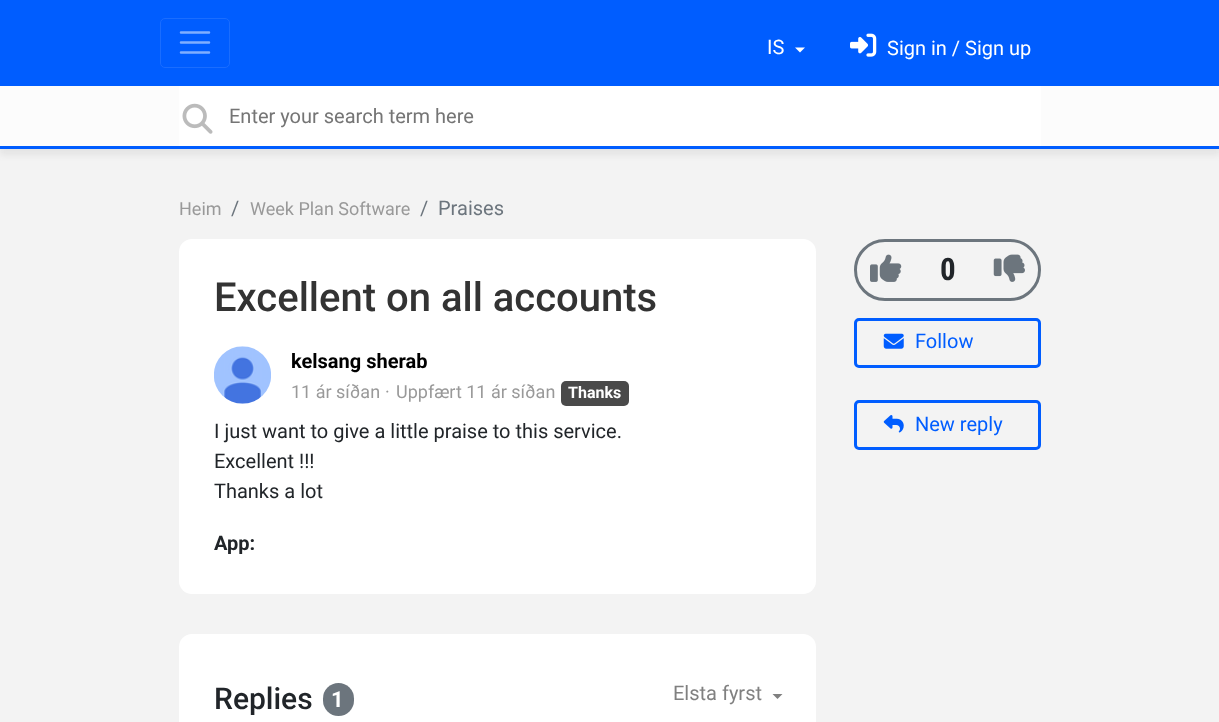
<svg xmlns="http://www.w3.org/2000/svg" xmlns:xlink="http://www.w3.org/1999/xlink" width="1219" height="722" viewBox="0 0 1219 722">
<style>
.cls-1{font:20px Roboto;fill:#ffffff}
.cls-2{font:20px Roboto;fill:#757575}
.cls-3{font:18px Roboto;fill:#999999}
.cls-4{font:20px Roboto;fill:#6c757d}
.cls-5{font:500 40px Roboto;fill:#333333}
.cls-6{font:bold 20px Roboto;fill:#000000}
.cls-7{font:bold 16px Roboto;fill:#ffffff}
.cls-8{font:20px Roboto;fill:#212529}
.cls-9{font:bold 20px Roboto;fill:#212529}
.cls-10{font:bold 31px Roboto Condensed;fill:#212529}
.cls-11{font:20px Roboto;fill:#005dff}
.cls-12{font:500 30px Roboto;fill:#212529}
.cls-13{font:bold 22px Roboto;fill:#ffffff}
.cls-14{font:20px Roboto;fill:#808080}
</style>
<rect width="100%" height="100%" fill="#f3f3f3"/>
<rect fill="#005dff" x="0" y="0" width="1219" height="86"/>
<rect fill="none" stroke="#1a6dff" x="160.5" y="18.5" width="69" height="49" rx="4.5"/>
<path fill="none" stroke="#80aeff" stroke-width="2.5" stroke-linecap="round" d="M181 32.5H209M181 42.5H209M181 52.5H209"/>
<path fill="#ffffff" d="M795 47.5H805L800 52.5Z"/>
<image xlink:href="image0.png" x="850" y="33" width="27" height="24"/>
<rect fill="#646464" fill-opacity="0.1" filter="blur(3px)" x="0" y="93" width="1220" height="62"/>
<rect fill="#fcfcfc" x="0" y="86" width="1219" height="60"/>
<rect fill="#005dff" x="0" y="146" width="1219" height="3"/>
<rect fill="#ffffff" x="179" y="86" width="862" height="60"/>
<image xlink:href="image1.png" x="182" y="103" width="31" height="31"/>
<rect fill="#ffffff" x="179" y="239" width="637" height="355" rx="13"/>
<image xlink:href="image2.png" x="214" y="346" width="57" height="58"/>
<rect fill="#4a4a4a" x="561" y="381" width="68" height="25" rx="5"/>
<rect fill="none" stroke="#6c757d" stroke-width="3" x="855.5" y="240.5" width="184" height="59" rx="29.5"/>
<image xlink:href="image3.png" x="870" y="254" width="32" height="28"/>
<image xlink:href="image4.png" x="993" y="254" width="32" height="28"/>
<rect fill="none" stroke="#005dff" stroke-width="3" x="855.5" y="319.5" width="184" height="47" rx="3.5"/>
<image xlink:href="image5.png" x="883" y="333" width="21" height="16"/>
<rect fill="none" stroke="#005dff" stroke-width="3" x="855.5" y="401.5" width="184" height="47" rx="3.5"/>
<image xlink:href="image6.png" x="883" y="415" width="21" height="18"/>
<rect fill="#ffffff" x="179" y="634" width="637" height="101" rx="13"/>
<rect fill="#6c757d" x="323" y="683" width="31" height="33" rx="15.5"/>
<path fill="#808080" d="M772.5 694H782.5L777.5 699Z"/>
<text class="cls-1" x="767" y="54">IS</text>
<text class="cls-1" x="887" y="55">Sign in / Sign up</text>
<text class="cls-2" x="229" y="123">Enter your search term here</text>
<text class="cls-3" x="179" y="215">Heim</text>
<text class="cls-4" x="231" y="215">/</text>
<text class="cls-3" x="250" y="215">Week Plan Software</text>
<text class="cls-4" x="420" y="215">/</text>
<text class="cls-4" x="438" y="215">Praises</text>
<text class="cls-5" x="214" y="311">Excellent on all accounts</text>
<text class="cls-6" x="291" y="368">kelsang sherab</text>
<text class="cls-3" x="291" y="398">11 ár síðan</text>
<text class="cls-3" x="385" y="398">·</text>
<text class="cls-3" x="396" y="398">Uppfært 11 ár síðan</text>
<text class="cls-7" x="568" y="398">Thanks</text>
<text class="cls-8"><tspan x="214" y="438">I just want to give a little praise to this service.</tspan><tspan x="214" y="468">Excellent !!!</tspan><tspan x="214" y="498">Thanks a lot</tspan></text>
<text class="cls-9" x="214" y="550">App:</text>
<text class="cls-10" x="940" y="280">0</text>
<text class="cls-11" x="915" y="348">Follow</text>
<text class="cls-11" x="915" y="431">New reply</text>
<text class="cls-12" x="214" y="709">Replies</text>
<text class="cls-13" x="331" y="707">1</text>
<text class="cls-14" x="673" y="700">Elsta fyrst</text>
</svg>
